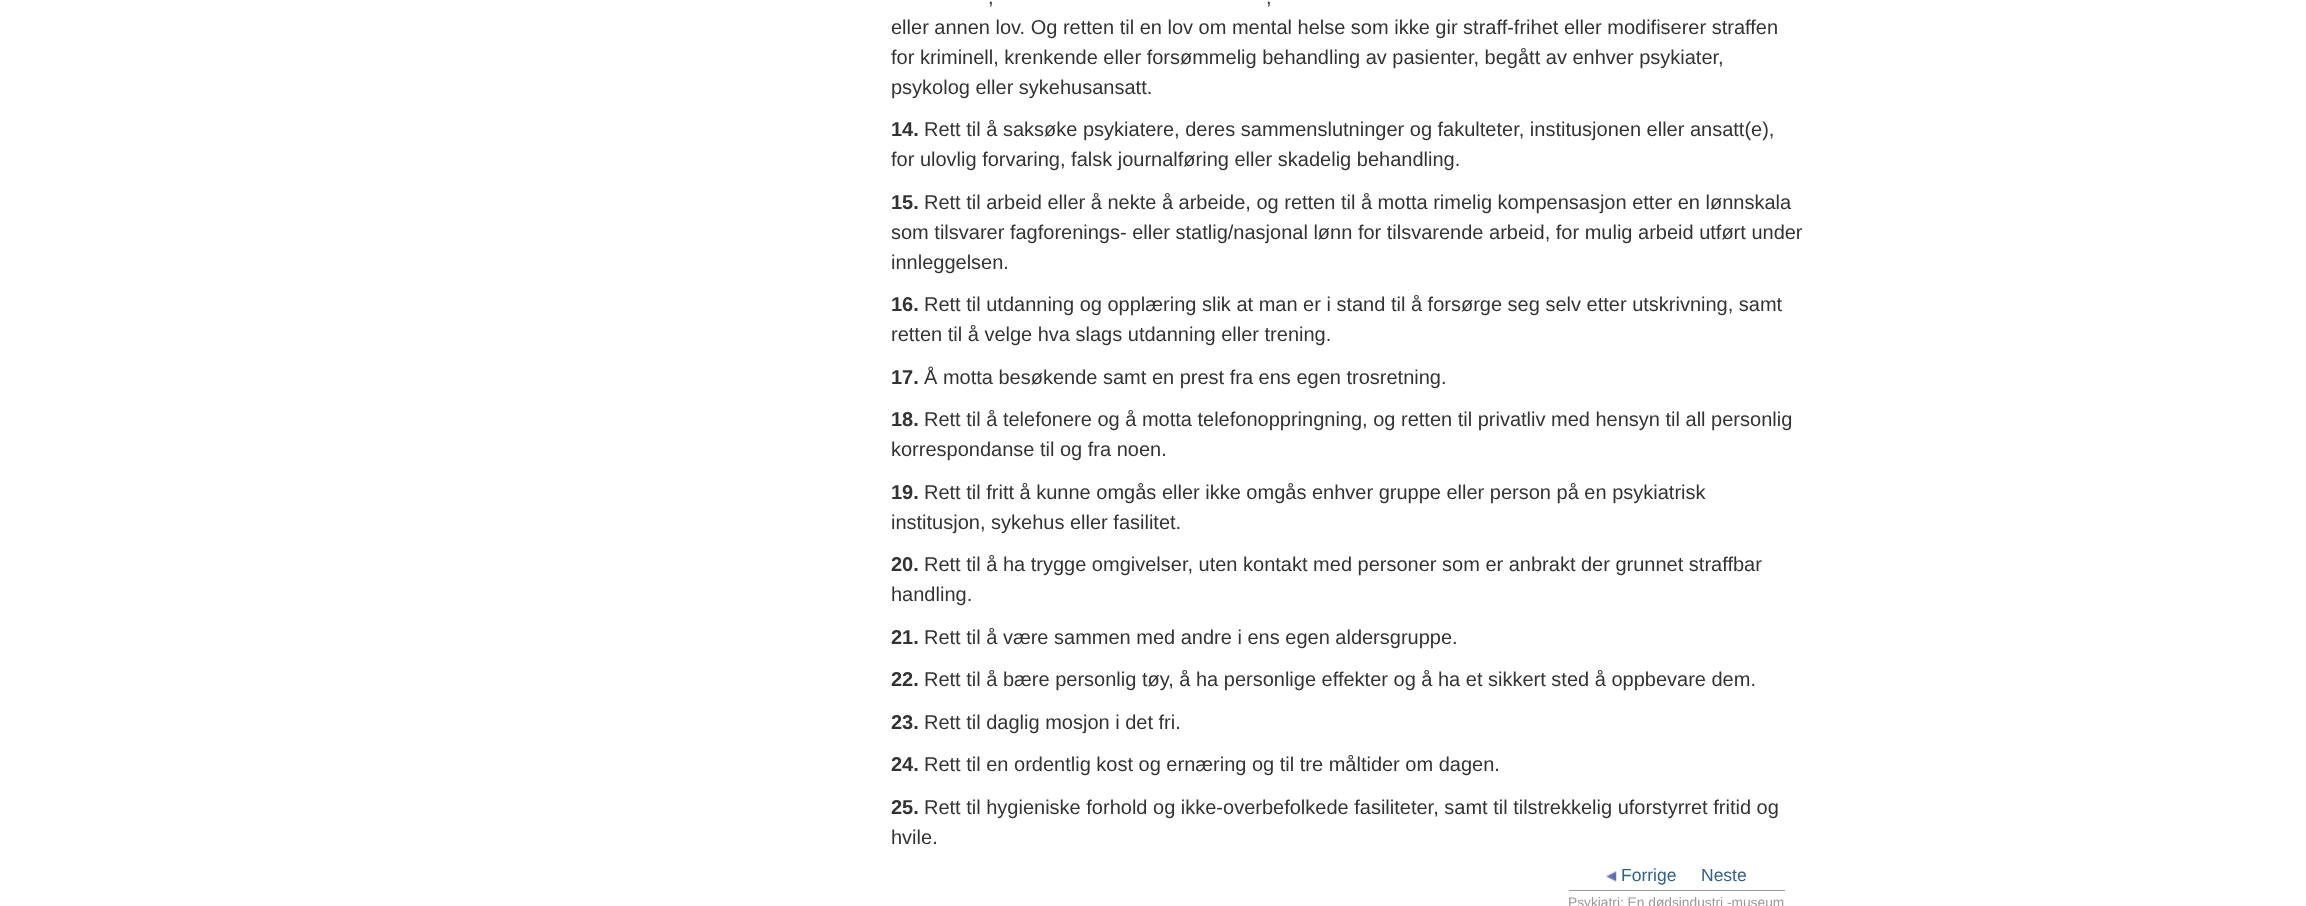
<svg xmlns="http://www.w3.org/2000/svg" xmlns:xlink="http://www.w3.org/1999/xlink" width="2306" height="906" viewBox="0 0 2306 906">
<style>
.cls-1{font:20px Liberation Sans;fill:#333333}
.cls-2{font:bold 20px Liberation Sans;fill:#333333}
.cls-3{font:17.5px Liberation Sans;fill:#326188}
.cls-4{font:13.75px Liberation Sans;fill:#999999}
</style>
<rect width="100%" height="100%" fill="#ffffff"/>
<rect fill="#999999" x="1569" y="890" width="216" height="1"/>
<image xlink:href="image0.png" x="1606" y="871" width="11" height="11"/>
<text class="cls-1" x="988" y="4">,</text>
<text class="cls-1" x="1266" y="4">,</text>
<text class="cls-1"><tspan x="891" y="34">eller annen lov. Og retten til en lov om mental helse som ikke gir straff-frihet eller modifiserer straffen</tspan><tspan x="891" y="64">for kriminell, krenkende eller forsømmelig behandling av pasienter, begått av enhver psykiater,</tspan><tspan x="891" y="94">psykolog eller sykehusansatt.</tspan></text>
<text class="cls-2" x="891" y="136">14.</text>
<text class="cls-1" x="924" y="136">Rett til å saksøke psykiatere, deres sammenslutninger og fakulteter, institusjonen eller ansatt(e),</text>
<text class="cls-1" x="891" y="166">for ulovlig forvaring, falsk journalføring eller skadelig behandling.</text>
<text class="cls-2" x="891" y="209">15.</text>
<text class="cls-1" x="924" y="209">Rett til arbeid eller å nekte å arbeide, og retten til å motta rimelig kompensasjon etter en lønnskala</text>
<text class="cls-1"><tspan x="891" y="239">som tilsvarer fagforenings- eller statlig/nasjonal lønn for tilsvarende arbeid, for mulig arbeid utført under</tspan><tspan x="891" y="269">innleggelsen.</tspan></text>
<text class="cls-2" x="891" y="311">16.</text>
<text class="cls-1" x="924" y="311">Rett til utdanning og opplæring slik at man er i stand til å forsørge seg selv etter utskrivning, samt</text>
<text class="cls-1" x="891" y="341">retten til å velge hva slags utdanning eller trening.</text>
<text class="cls-2" x="891" y="384">17.</text>
<text class="cls-1" x="924" y="384">Å motta besøkende samt en prest fra ens egen trosretning.</text>
<text class="cls-2" x="891" y="426">18.</text>
<text class="cls-1" x="924" y="426">Rett til å telefonere og å motta telefonoppringning, og retten til privatliv med hensyn til all personlig</text>
<text class="cls-1" x="891" y="456">korrespondanse til og fra noen.</text>
<text class="cls-2" x="891" y="499">19.</text>
<text class="cls-1" x="924" y="499">Rett til fritt å kunne omgås eller ikke omgås enhver gruppe eller person på en psykiatrisk</text>
<text class="cls-1" x="891" y="529">institusjon, sykehus eller fasilitet.</text>
<text class="cls-2" x="891" y="571">20.</text>
<text class="cls-1" x="924" y="571">Rett til å ha trygge omgivelser, uten kontakt med personer som er anbrakt der grunnet straffbar</text>
<text class="cls-1" x="891" y="601">handling.</text>
<text class="cls-2" x="891" y="644">21.</text>
<text class="cls-1" x="924" y="644">Rett til å være sammen med andre i ens egen aldersgruppe.</text>
<text class="cls-2" x="891" y="686">22.</text>
<text class="cls-1" x="924" y="686">Rett til å bære personlig tøy, å ha personlige effekter og å ha et sikkert sted å oppbevare dem.</text>
<text class="cls-2" x="891" y="729">23.</text>
<text class="cls-1" x="924" y="729">Rett til daglig mosjon i det fri.</text>
<text class="cls-2" x="891" y="771">24.</text>
<text class="cls-1" x="924" y="771">Rett til en ordentlig kost og ernæring og til tre måltider om dagen.</text>
<text class="cls-2" x="891" y="814">25.</text>
<text class="cls-1" x="924" y="814">Rett til hygieniske forhold og ikke-overbefolkede fasiliteter, samt til tilstrekkelig uforstyrret fritid og</text>
<text class="cls-1" x="891" y="844">hvile.</text>
<text class="cls-3" x="1621" y="881">Forrige</text>
<text class="cls-3" x="1701" y="881">Neste</text>
<text class="cls-4" x="1568" y="907">Psykiatri: En dødsindustri -museum</text>
</svg>
